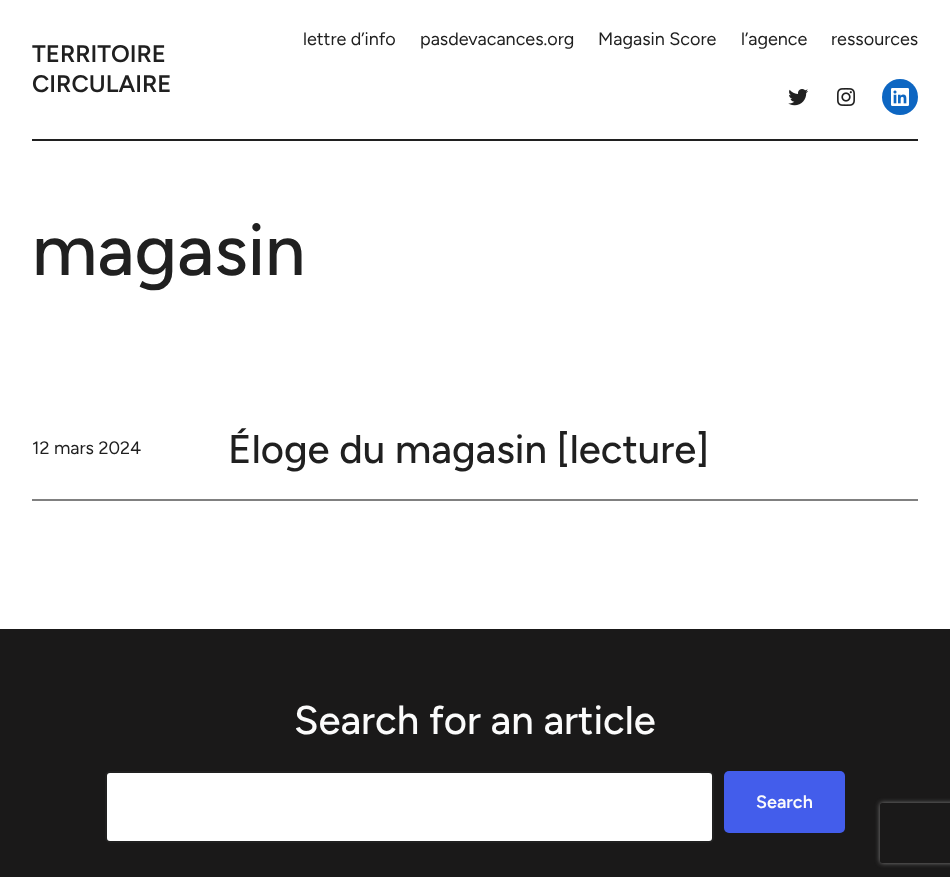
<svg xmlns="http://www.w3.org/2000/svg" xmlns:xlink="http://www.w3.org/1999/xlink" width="950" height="877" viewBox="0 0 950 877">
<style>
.cls-1{font:18px Figtree;fill:#202020}
.cls-2{font:600 24px Figtree;fill:#202020}
.cls-3{font:500 72px Figtree;fill:#202020}
.cls-4{font:500 40px Figtree;fill:#202020}
.cls-5{font:500 40px Figtree;fill:#fbfbfb}
.cls-6{font:600 18px Figtree;fill:#fbfbfb}
</style>
<defs>
<clipPath id="clip1"><path d="M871 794H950V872H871ZM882 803H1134C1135 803 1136 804 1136 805V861C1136 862 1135 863 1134 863H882C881 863 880 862 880 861V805C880 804 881 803 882 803Z" clip-rule="evenodd"/></clipPath>
</defs>
<rect width="100%" height="100%" fill="#ffffff"/>
<rect fill="#202020" x="32" y="139" width="886" height="2"/>
<image xlink:href="image0.png" x="788" y="89" width="20" height="17"/>
<image xlink:href="image1.png" x="837" y="88" width="18" height="18"/>
<circle fill="#0d66c2" cx="900" cy="97" r="18"/>
<image xlink:href="image2.png" x="891" y="88" width="18" height="18"/>
<rect fill="#808080" x="32" y="499" width="886" height="2"/>
<rect fill="#1a1919" x="0" y="629" width="950" height="248"/>
<rect fill="#ffffff" stroke="#202020" stroke-width="2" x="106" y="772" width="607" height="70" rx="4"/>
<rect fill="#435deb" x="724" y="771" width="121" height="62" rx="5"/>
<g clip-path="url(#clip1)">
<rect fill="#808080" filter="blur(2.5px)" x="880" y="803" width="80" height="60" rx="2"/>
</g>
<text class="cls-1" x="303" y="45">lettre d’info</text>
<text class="cls-1" x="420" y="45">pasdevacances.org</text>
<text class="cls-1" x="598" y="45">Magasin Score</text>
<text class="cls-1" x="741" y="45">l’agence</text>
<text class="cls-1" x="831" y="45">ressources</text>
<text class="cls-2"><tspan x="32" y="62">TERRITOIRE</tspan><tspan x="32" y="92">CIRCULAIRE</tspan></text>
<text class="cls-3" x="32" y="275">magasin</text>
<text class="cls-1" x="32" y="454">12 mars 2024</text>
<text class="cls-4" x="228" y="463">Éloge du magasin [lecture]</text>
<text class="cls-5" x="294" y="734">Search for an article</text>
<text class="cls-6" x="756" y="808">Search</text>
</svg>
